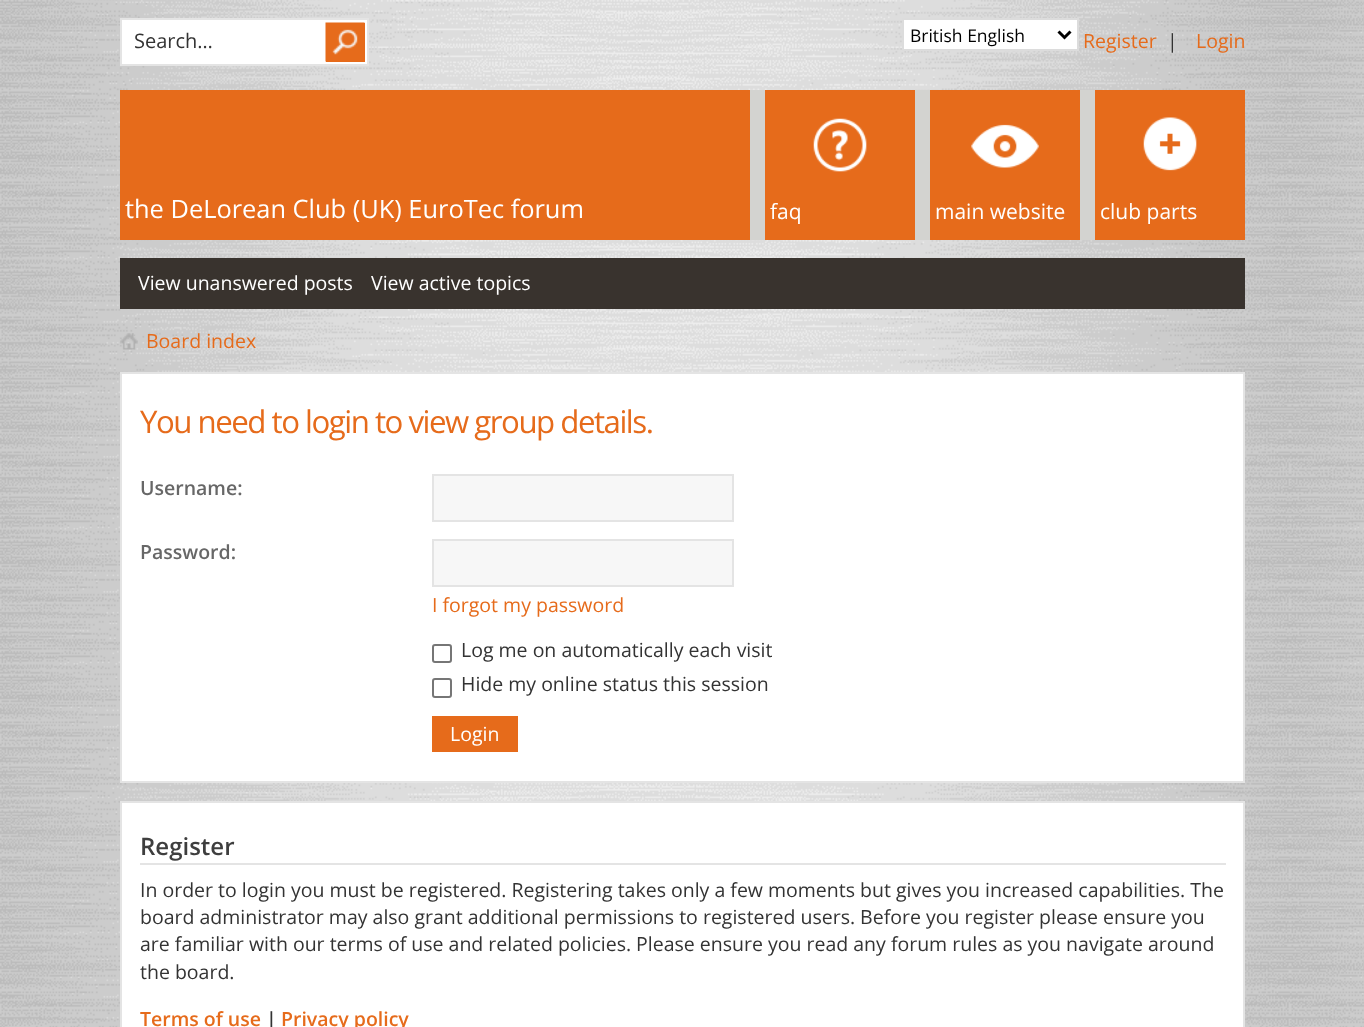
<svg xmlns="http://www.w3.org/2000/svg" xmlns:xlink="http://www.w3.org/1999/xlink" width="1364" height="1027" viewBox="0 0 1364 1027">
<style>
.cls-1{font:20px Open Sans;fill:#333333}
.cls-2{font:17.5px Open Sans;fill:#000000}
.cls-3{font:19.5px Open Sans;fill:#e66b1b}
.cls-4{font:19.5px Open Sans;fill:#333333}
.cls-5{font:25.4px Open Sans;fill:#ffffff}
.cls-6{font:21px Open Sans;fill:#ffffff}
.cls-7{font:19.5px Open Sans;fill:#ffffff}
.cls-8{font:31.25px Open Sans;letter-spacing:-1.5px;fill:#e66b1b}
.cls-9{font:600 19.5px Open Sans;fill:#676767}
.cls-10{font:600 24px Open Sans;fill:#3e3e3e}
.cls-11{font:600 19.5px Open Sans;fill:#e66b1b}
.cls-12{font:600 19.5px Open Sans;fill:#333333}
</style>
<rect width="100%" height="100%" fill="#ffffff"/>
<image xlink:href="image0.png" x="0" y="0" width="1364" height="1027"/>
<rect fill="#ffffff" stroke="#e4e4e4" stroke-width="2" x="121" y="19" width="247" height="46"/>
<rect fill="#e66b1b" x="326" y="23" width="39" height="39"/>
<image xlink:href="image1.png" x="325" y="22" width="40" height="40"/>
<rect fill="#ffffff" stroke="#dcdcdc" stroke-width="2" x="903" y="19" width="175" height="31"/>
<path fill="none" stroke="#000000" stroke-width="3" d="M1058.5 31.5L1064.5 37.5L1070.5 31.5"/>
<rect fill="#e66b1b" x="120" y="90" width="1125" height="150"/>
<rect fill="#d3d3d0" x="750" y="90" width="15" height="150"/>
<image xlink:href="image2.png" x="813" y="118" width="54" height="54"/>
<rect fill="#d3d3d0" x="915" y="90" width="15" height="150"/>
<image xlink:href="image3.png" x="971" y="124" width="68" height="44"/>
<rect fill="#d3d3d0" x="1080" y="90" width="15" height="150"/>
<image xlink:href="image4.png" x="1143" y="117" width="54" height="54"/>
<rect fill="#39332e" x="120" y="258" width="1125" height="51"/>
<image xlink:href="image5.png" x="120" y="333" width="18" height="17"/>
<rect fill="#ffffff" stroke="#e4e4e4" stroke-width="2" x="121" y="373" width="1123" height="409"/>
<rect fill="#f7f7f7" stroke="#e4e4e4" stroke-width="2" x="433" y="475" width="300" height="46"/>
<rect fill="#f7f7f7" stroke="#e4e4e4" stroke-width="2" x="433" y="540" width="300" height="46"/>
<rect fill="none" stroke="#767676" stroke-width="2" x="433" y="645" width="18" height="17" rx="2"/>
<rect fill="none" stroke="#767676" stroke-width="2" x="433" y="679" width="18" height="18" rx="2"/>
<rect fill="#e66b1b" x="432" y="716" width="86" height="36"/>
<rect fill="#ffffff" stroke="#e4e4e4" stroke-width="2" x="121" y="802" width="1123" height="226"/>
<rect fill="#e4e4e4" x="140" y="863" width="1086" height="2"/>
<text class="cls-1" x="134" y="48">Search…</text>
<text class="cls-2" x="910" y="42">British English</text>
<text class="cls-3" x="1083" y="48">Register</text>
<text class="cls-4" x="1167" y="48">|</text>
<text class="cls-3" x="1196" y="48">Login</text>
<text class="cls-5" x="125" y="218">the DeLorean Club (UK) EuroTec forum</text>
<text class="cls-6" x="770" y="219">faq</text>
<text class="cls-6" x="935" y="219">main website</text>
<text class="cls-6" x="1100" y="219">club parts</text>
<text class="cls-7" x="138" y="290">View unanswered posts</text>
<text class="cls-7" x="371" y="290">View active topics</text>
<text class="cls-3" x="146" y="348">Board index</text>
<text class="cls-8" x="140" y="433">You need to login to view group details.</text>
<text class="cls-9" x="140" y="495">Username:</text>
<text class="cls-9" x="140" y="559">Password:</text>
<text class="cls-3" x="432" y="612">I forgot my password</text>
<text class="cls-4"><tspan x="461" y="657">Log me on automatically each visit</tspan><tspan x="461" y="691">Hide my online status this session</tspan></text>
<text class="cls-7" x="450" y="741">Login</text>
<text class="cls-10" x="140" y="855">Register</text>
<text class="cls-4"><tspan x="140" y="897">In order to login you must be registered. Registering takes only a few moments but gives you increased capabilities. The</tspan><tspan x="140" y="924">board administrator may also grant additional permissions to registered users. Before you register please ensure you</tspan><tspan x="140" y="951">are familiar with our terms of use and related policies. Please ensure you read any forum rules as you navigate around</tspan><tspan x="140" y="979">the board.</tspan></text>
<text class="cls-11" x="140" y="1026">Terms of use</text>
<text class="cls-12" x="266" y="1026">|</text>
<text class="cls-11" x="281" y="1026">Privacy policy</text>
</svg>
